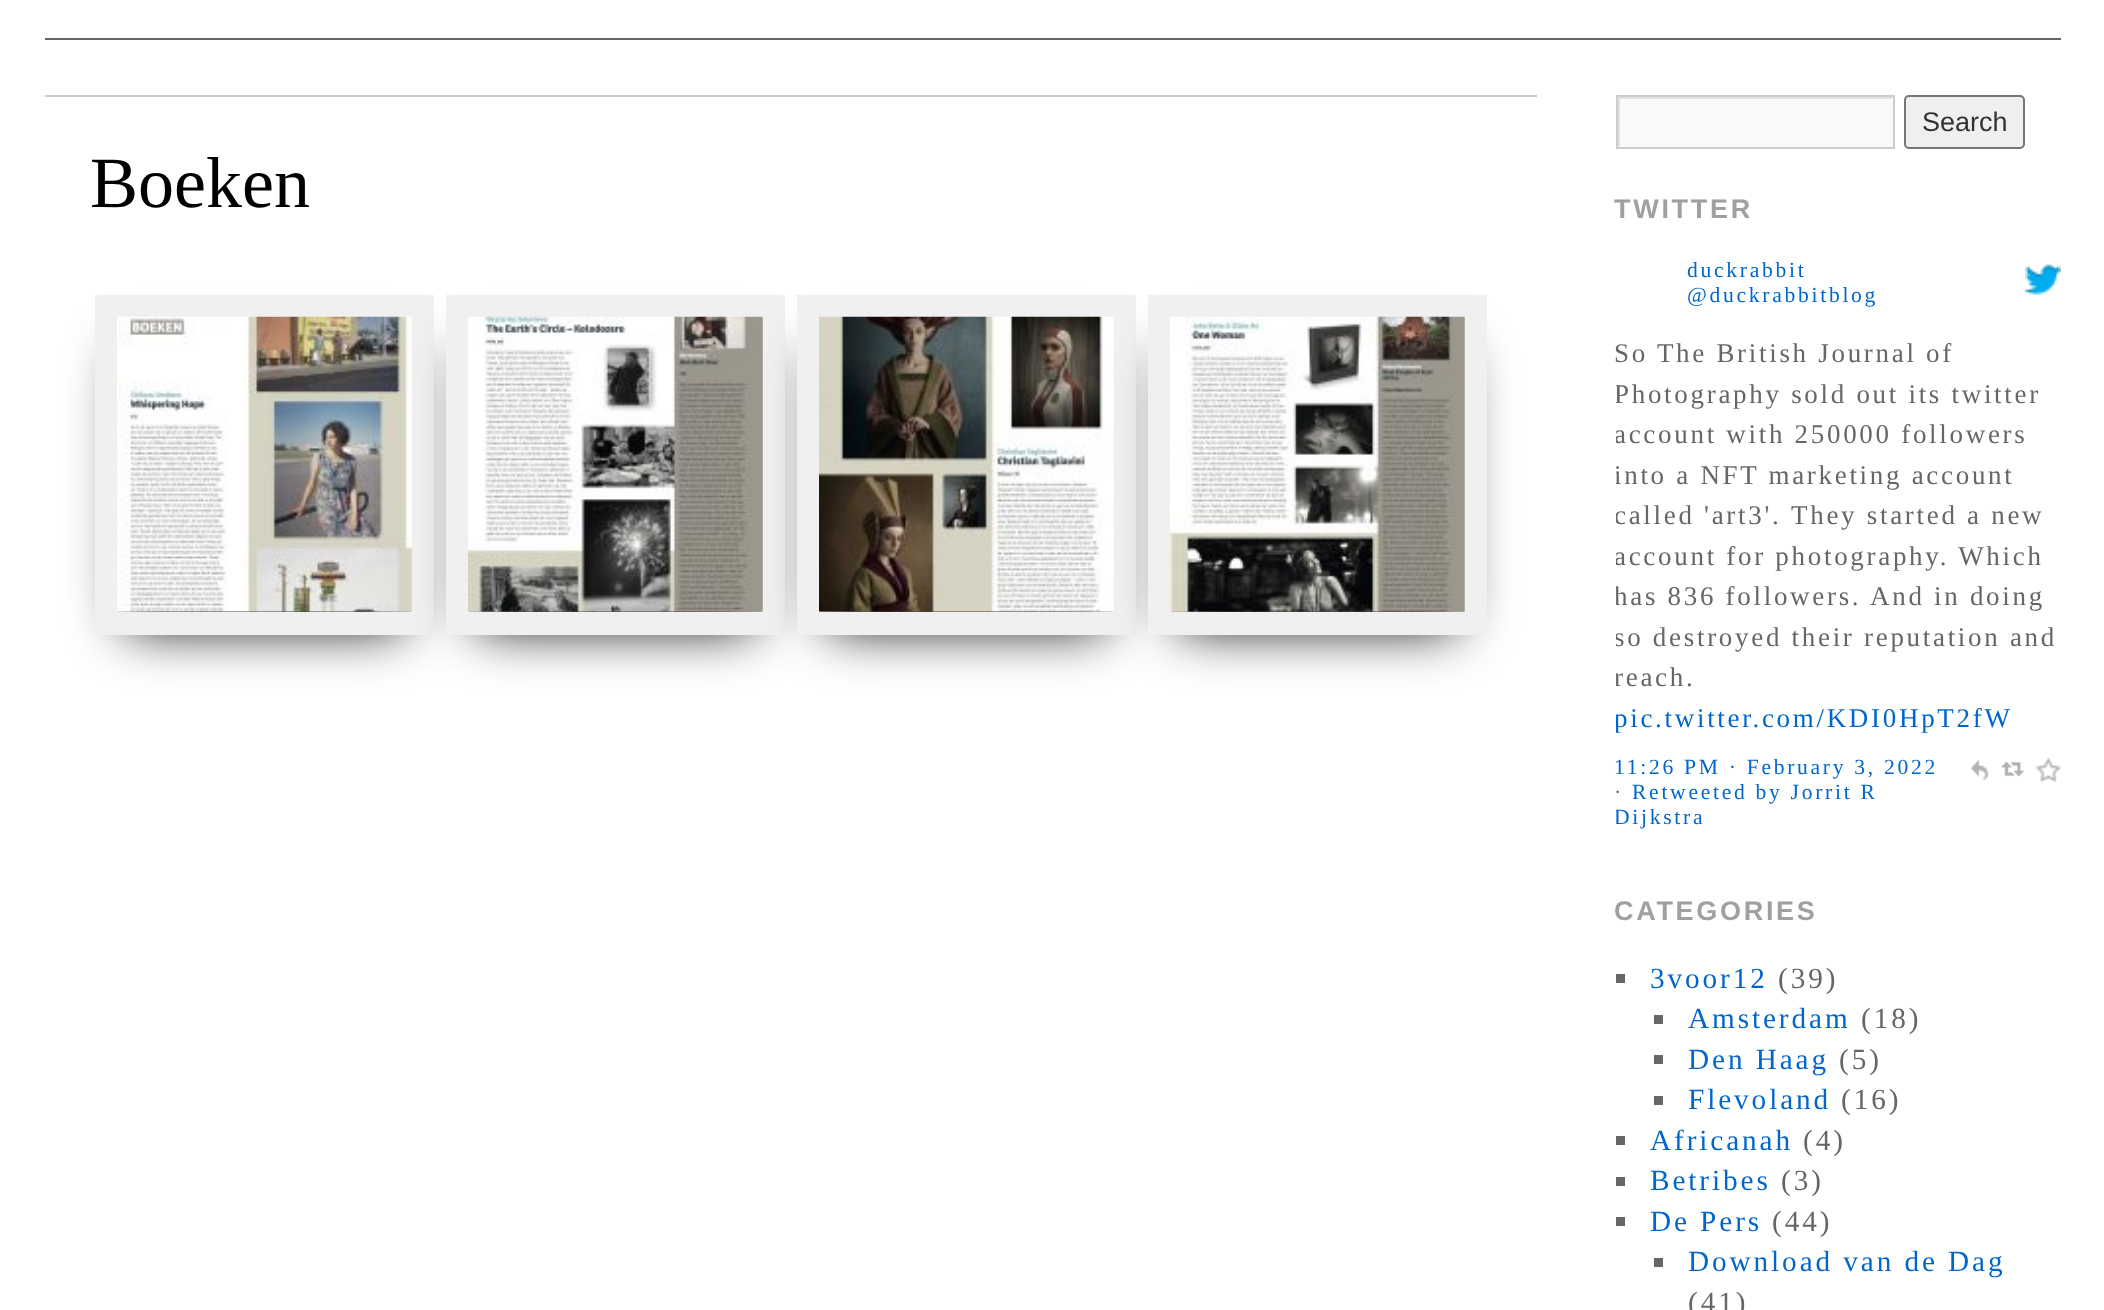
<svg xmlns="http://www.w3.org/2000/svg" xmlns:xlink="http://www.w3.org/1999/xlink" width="2104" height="1310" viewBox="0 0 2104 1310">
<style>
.cls-1{font:72px Liberation Serif;fill:#000000}
.cls-2{font:27px Liberation Sans;fill:#333333}
.cls-3{font:bold 27px Liberation Sans;letter-spacing:2.7px;fill:#a0a0a0}
.cls-4{font:21.6px Liberation Serif;letter-spacing:2.7px;fill:#0066cc}
.cls-5{font:27px Liberation Serif;letter-spacing:2.7px;fill:#666666}
.cls-6{font:27px Liberation Serif;letter-spacing:2.7px;fill:#0066cc}
.cls-7{font:21.6px Liberation Serif;letter-spacing:2.7px;fill:#666666}
.cls-8{font:29.25px Liberation Serif;letter-spacing:2.9px;fill:#0066cc}
.cls-9{font:29.25px Liberation Serif;letter-spacing:2.9px;fill:#666666}
</style>
<defs>
<clipPath id="clip1"><rect x="1618" y="97" width="274" height="49"/></clipPath>
<clipPath id="clip2"><rect x="1616" y="257" width="445" height="594"/></clipPath>
</defs>
<rect width="100%" height="100%" fill="#ffffff"/>
<rect fill="#666666" x="45" y="38" width="2016" height="2"/>
<rect fill="#cccccc" x="45" y="95" width="1492" height="2"/>
<rect fill="#000000" filter="blur(27px)" x="126" y="351" width="277" height="277"/>
<rect fill="none" stroke="#f0f0f0" stroke-width="23" x="106.5" y="306.5" width="316" height="317"/>
<image xlink:href="image0.png" x="117" y="316" width="295" height="296"/>
<rect fill="#000000" filter="blur(27px)" x="477" y="351" width="277" height="277"/>
<rect fill="none" stroke="#f0f0f0" stroke-width="23" x="457.5" y="306.5" width="316" height="317"/>
<image xlink:href="image1.png" x="468" y="316" width="295" height="296"/>
<rect fill="#000000" filter="blur(27px)" x="828" y="351" width="277" height="277"/>
<rect fill="none" stroke="#f0f0f0" stroke-width="23" x="808.5" y="306.5" width="316" height="317"/>
<image xlink:href="image2.png" x="819" y="316" width="295" height="296"/>
<rect fill="#000000" filter="blur(27px)" x="1179" y="351" width="277" height="277"/>
<rect fill="none" stroke="#f0f0f0" stroke-width="23" x="1159.5" y="306.5" width="316" height="317"/>
<image xlink:href="image3.png" x="1170" y="316" width="295" height="296"/>
<rect fill="#f9f9f9" x="1618" y="97" width="275" height="50"/>
<g clip-path="url(#clip1)">
<path fill="#e0e0e0" fill-rule="evenodd" d="M1395-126H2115V369H1395ZM1620 99H1894V148H1620Z"/>
</g>
<rect fill="none" stroke="#cccccc" stroke-width="2" x="1617" y="96" width="277" height="52"/>
<rect fill="#efefef" stroke="#767676" stroke-width="2" x="1905" y="96" width="119" height="52" rx="4"/>
<image xlink:href="image4.png" x="2025" y="264" width="36" height="31"/>
<image xlink:href="image5.png" x="1971" y="760" width="18" height="21"/>
<image xlink:href="image6.png" x="2001" y="762" width="23" height="15"/>
<image xlink:href="image7.png" x="2035" y="757" width="26" height="26"/>
<rect fill="#666666" x="1616" y="974" width="9" height="9"/>
<rect fill="#666666" x="1654" y="1015" width="9" height="9"/>
<rect fill="#666666" x="1654" y="1055" width="9" height="9"/>
<rect fill="#666666" x="1654" y="1096" width="9" height="9"/>
<rect fill="#666666" x="1616" y="1136" width="9" height="9"/>
<rect fill="#666666" x="1616" y="1177" width="9" height="9"/>
<rect fill="#666666" x="1616" y="1217" width="9" height="9"/>
<rect fill="#666666" x="1654" y="1258" width="9" height="9"/>
<text class="cls-1" x="90" y="207">Boeken</text>
<text class="cls-2" x="1922" y="131">Search</text>
<text class="cls-3" x="1614" y="218">TWITTER</text>
<text class="cls-4"><tspan x="1687" y="277">duckrabbit</tspan><tspan x="1687" y="302">@duckrabbitblog</tspan></text>
<text class="cls-5" x="1614" y="362">So The British Journal of</text>
<g clip-path="url(#clip2)">
<text class="cls-5"><tspan x="1614" y="403">Photography sold out its twitter</tspan><tspan x="1614" y="443">account with 250000 followers</tspan><tspan x="1614" y="484">into a NFT marketing account</tspan><tspan x="1614" y="524">called 'art3'.</tspan></text>
</g>
<text class="cls-5" x="1791" y="524">They started a new</text>
<g clip-path="url(#clip2)">
<text class="cls-5"><tspan x="1614" y="565">account for photography. Which</tspan><tspan x="1614" y="605">has 836 followers.</tspan></text>
</g>
<text class="cls-5" x="1870" y="605">And in doing</text>
<g clip-path="url(#clip2)">
<text class="cls-5"><tspan x="1614" y="646">so destroyed their reputation and</tspan><tspan x="1614" y="686">reach.</tspan></text>
<text class="cls-6" x="1614" y="727">pic.twitter.com/KDI0HpT2fW</text>
</g>
<text class="cls-4" x="1614" y="774">11:26 PM · February 3, 2022</text>
<text class="cls-7" x="1614" y="799">·</text>
<text class="cls-4" x="1632" y="799">Retweeted by Jorrit R</text>
<g clip-path="url(#clip2)">
<text class="cls-4" x="1614" y="824">Dijkstra</text>
</g>
<text class="cls-3" x="1614" y="920">CATEGORIES</text>
<text class="cls-8" x="1650" y="988">3voor12</text>
<text class="cls-9" x="1778" y="988">(39)</text>
<text class="cls-8" x="1688" y="1028">Amsterdam</text>
<text class="cls-9" x="1861" y="1028">(18)</text>
<text class="cls-8" x="1688" y="1069">Den Haag</text>
<text class="cls-9" x="1839" y="1069">(5)</text>
<text class="cls-8" x="1688" y="1109">Flevoland</text>
<text class="cls-9" x="1841" y="1109">(16)</text>
<text class="cls-8" x="1650" y="1150">Africanah</text>
<text class="cls-9" x="1803" y="1150">(4)</text>
<text class="cls-8" x="1650" y="1190">Betribes</text>
<text class="cls-9" x="1781" y="1190">(3)</text>
<text class="cls-8" x="1650" y="1231">De Pers</text>
<text class="cls-9" x="1772" y="1231">(44)</text>
<text class="cls-8" x="1688" y="1271">Download van de Dag</text>
<text class="cls-9" x="1688" y="1312">(41)</text>
</svg>
